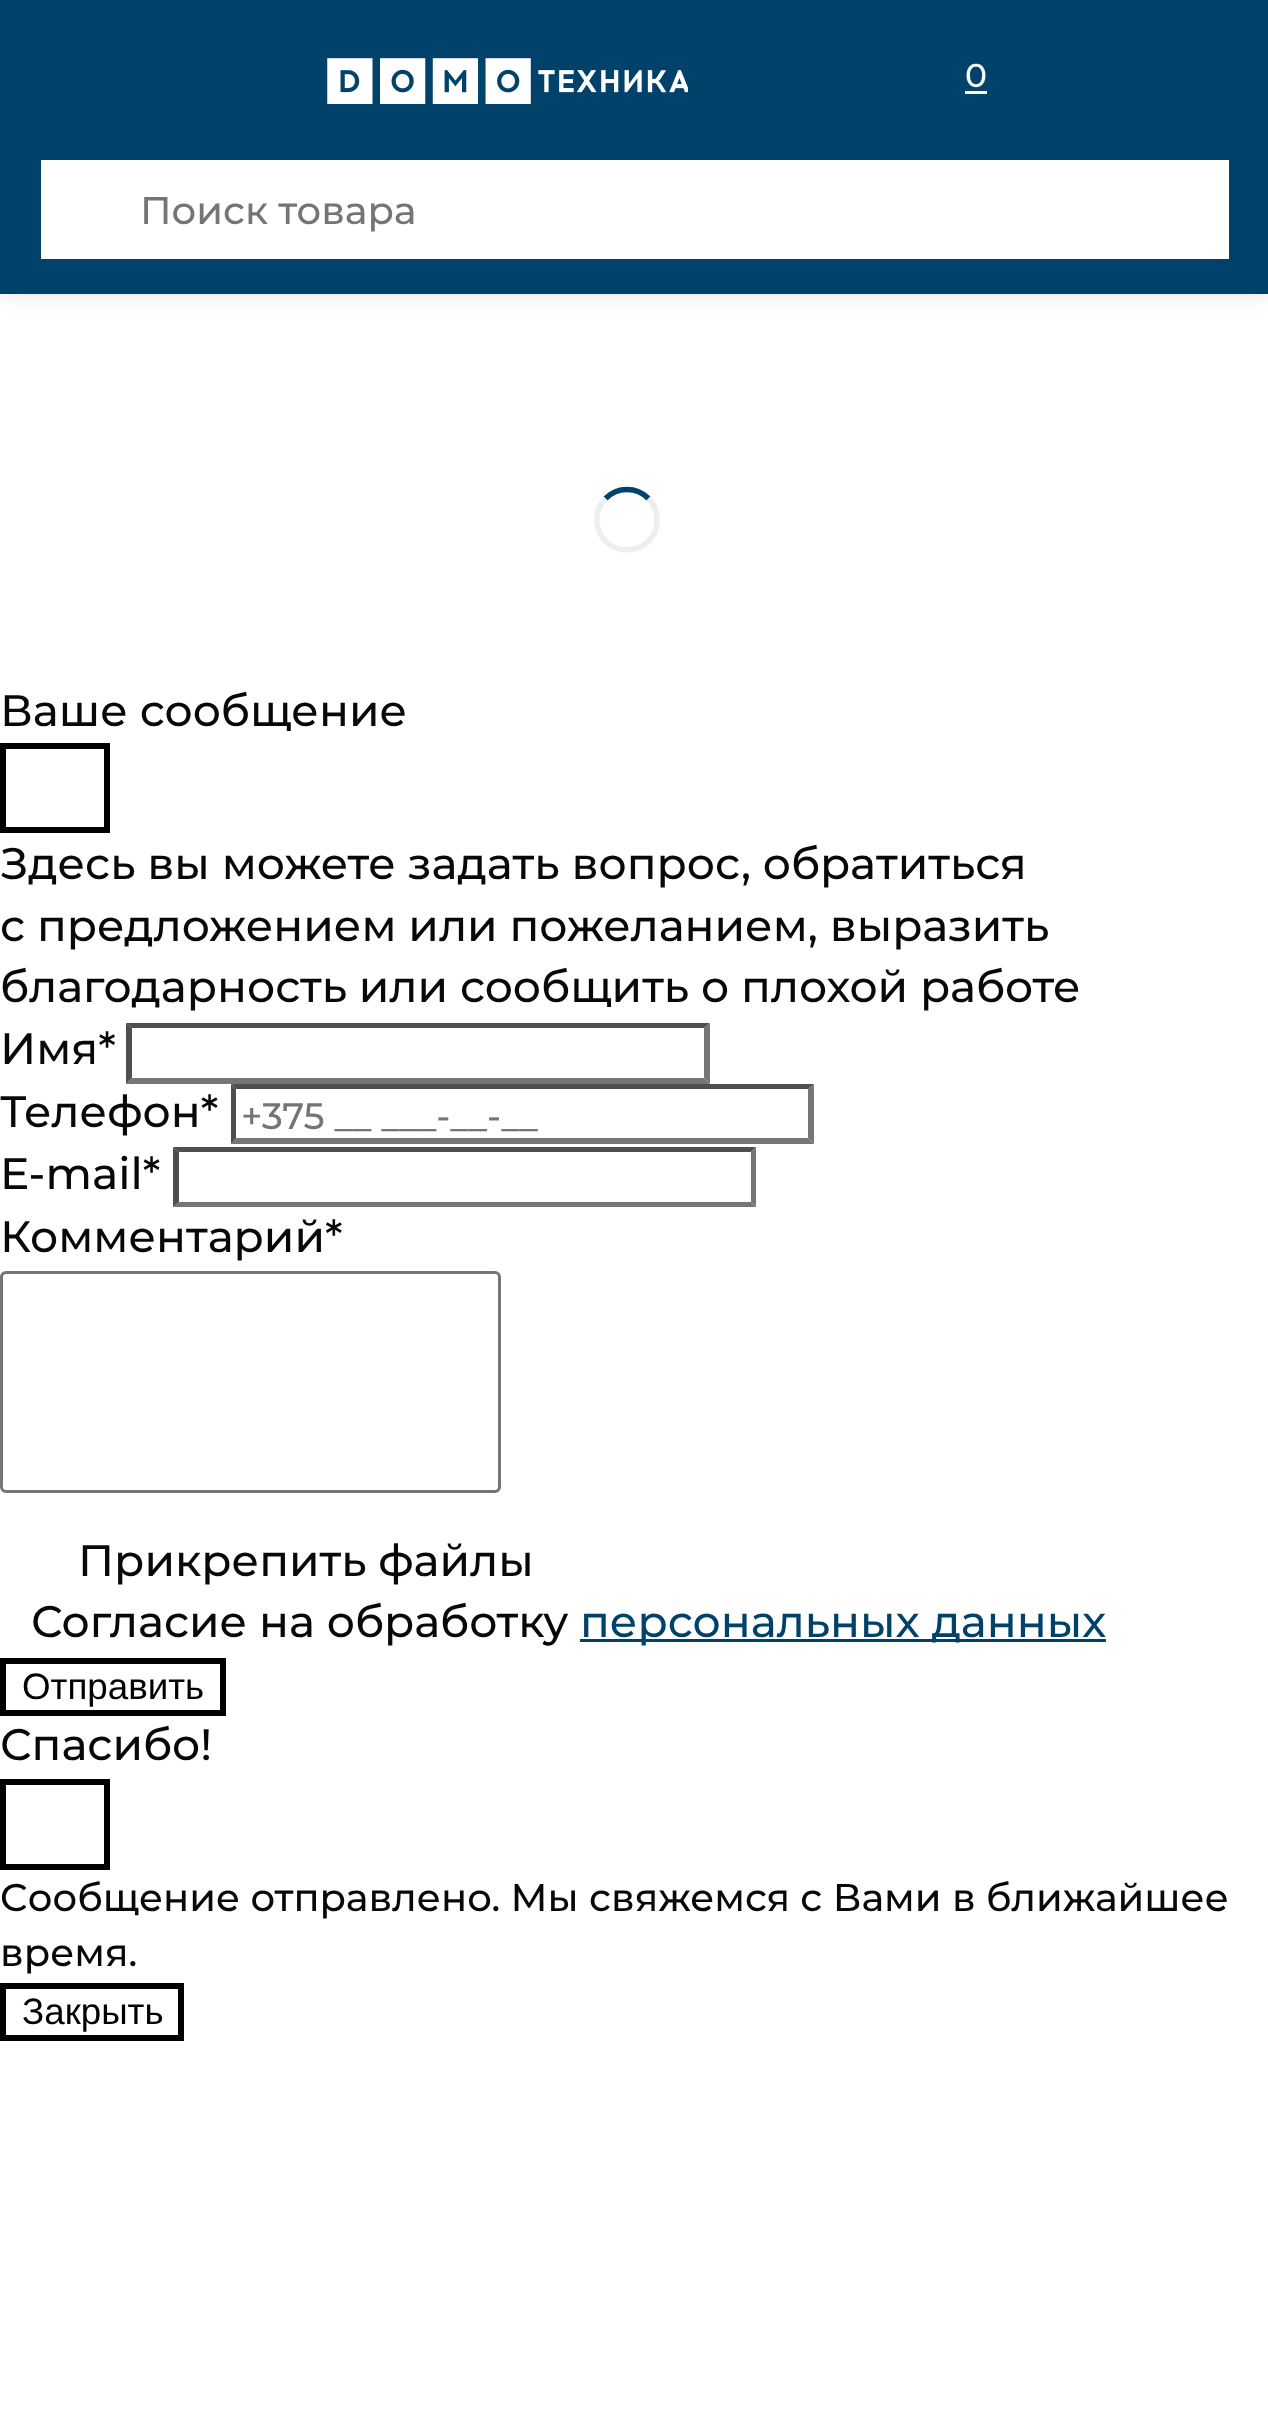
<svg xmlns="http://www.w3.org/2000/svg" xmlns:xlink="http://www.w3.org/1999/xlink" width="1268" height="2417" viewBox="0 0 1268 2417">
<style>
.cls-1{font:500 33px Montserrat;fill:#ffffff}
.cls-2{font:500 38.5px Montserrat;fill:#757575}
.cls-3{font:500 44px Montserrat;fill:#080808}
.cls-4{font:500 36.75px Montserrat;fill:#757575}
.cls-5{font:500 44px Montserrat;fill:#01426a}
.cls-6{font:36.75px Liberation Sans;fill:#000000}
.cls-7{font:500 38.5px Montserrat;fill:#080808}
</style>
<rect width="100%" height="100%" fill="#ffffff"/>
<rect fill="#000000" fill-opacity="0.1" filter="blur(11px)" x="0" y="0" width="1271" height="294"/>
<rect fill="#01426a" x="0" y="0" width="1268" height="294"/>
<image xlink:href="image0.png" x="327" y="58" width="361" height="46"/>
<rect fill="#ffffff" x="965" y="91" width="22" height="3"/>
<rect fill="#ffffff" x="41" y="160" width="1188" height="99"/>
<path fill="none" stroke="#01426a" stroke-width="5.5" d="M605.5 498.5C617.5 486.5 636.5 486.5 648.5 498.5"/>
<path fill="none" stroke="#eeeeee" stroke-width="5.5" d="M648.5 498.5C654 504 657 512 657 520C657 556 604.5 561 597.5 525.5C595.5 516 598.5 505.5 605.5 498.5"/>
<rect fill="none" stroke="#000000" stroke-width="6" x="3" y="746" width="104" height="84"/>
<path fill="#4f4f4f" d="M126 1023H710L704 1028H132Z"/>
<path fill="#767676" d="M710 1023V1084L704 1078V1028Z"/>
<path fill="#767676" d="M710 1084H126L132 1078H704Z"/>
<path fill="#4f4f4f" d="M126 1084V1023L132 1028V1078Z"/>
<path fill="#4f4f4f" d="M231 1084H814L808 1089H236Z"/>
<path fill="#767676" d="M814 1084V1144L808 1138V1089Z"/>
<path fill="#767676" d="M814 1144H231L236 1138H808Z"/>
<path fill="#4f4f4f" d="M231 1144V1084L236 1089V1138Z"/>
<path fill="#4f4f4f" d="M173 1147H756L751 1152H179Z"/>
<path fill="#767676" d="M756 1147V1207L751 1202V1152Z"/>
<path fill="#767676" d="M756 1207H173L179 1202H751Z"/>
<path fill="#4f4f4f" d="M173 1207V1147L179 1152V1202Z"/>
<rect fill="none" stroke="#767676" stroke-width="3" x="1.5" y="1272.5" width="498" height="219" rx="4.5"/>
<rect fill="#01426a" x="580" y="1639" width="526" height="3"/>
<rect fill="none" stroke="#000000" stroke-width="6" x="3" y="1661" width="220" height="52"/>
<rect fill="none" stroke="#000000" stroke-width="6" x="3" y="1782" width="104" height="85"/>
<rect fill="none" stroke="#000000" stroke-width="6" x="3" y="1986" width="178" height="52"/>
<text class="cls-1" x="965" y="87">0</text>
<text class="cls-2" x="140" y="224">Поиск товара</text>
<text class="cls-3" x="0" y="726">Ваше сообщение</text>
<text class="cls-3"><tspan x="0" y="879">Здесь вы можете задать вопрос, обратиться</tspan><tspan x="0" y="941">с предложением или пожеланием, выразить</tspan><tspan x="0" y="1002">благодарность или сообщить о плохой работе</tspan><tspan x="0" y="1064">Имя*</tspan><tspan x="0" y="1127">Телефон*</tspan></text>
<text class="cls-4" x="241" y="1129">+375 __ ___-__-__</text>
<text class="cls-3"><tspan x="0" y="1189">E-mail*</tspan><tspan x="0" y="1252">Комментарий*</tspan></text>
<text class="cls-3" x="78" y="1576">Прикрепить файлы</text>
<text class="cls-3" x="31" y="1637">Согласие на обработку</text>
<text class="cls-5" x="580" y="1637">персональныx данных</text>
<text class="cls-6" x="22" y="1699">Отправить</text>
<text class="cls-3" x="0" y="1760">Спасибо!</text>
<text class="cls-7"><tspan x="0" y="1911">Cообщение отправлено. Мы свяжемся с Вами в ближайшее</tspan><tspan x="0" y="1966">время.</tspan></text>
<text class="cls-6" x="22" y="2024">Закрыть</text>
</svg>
